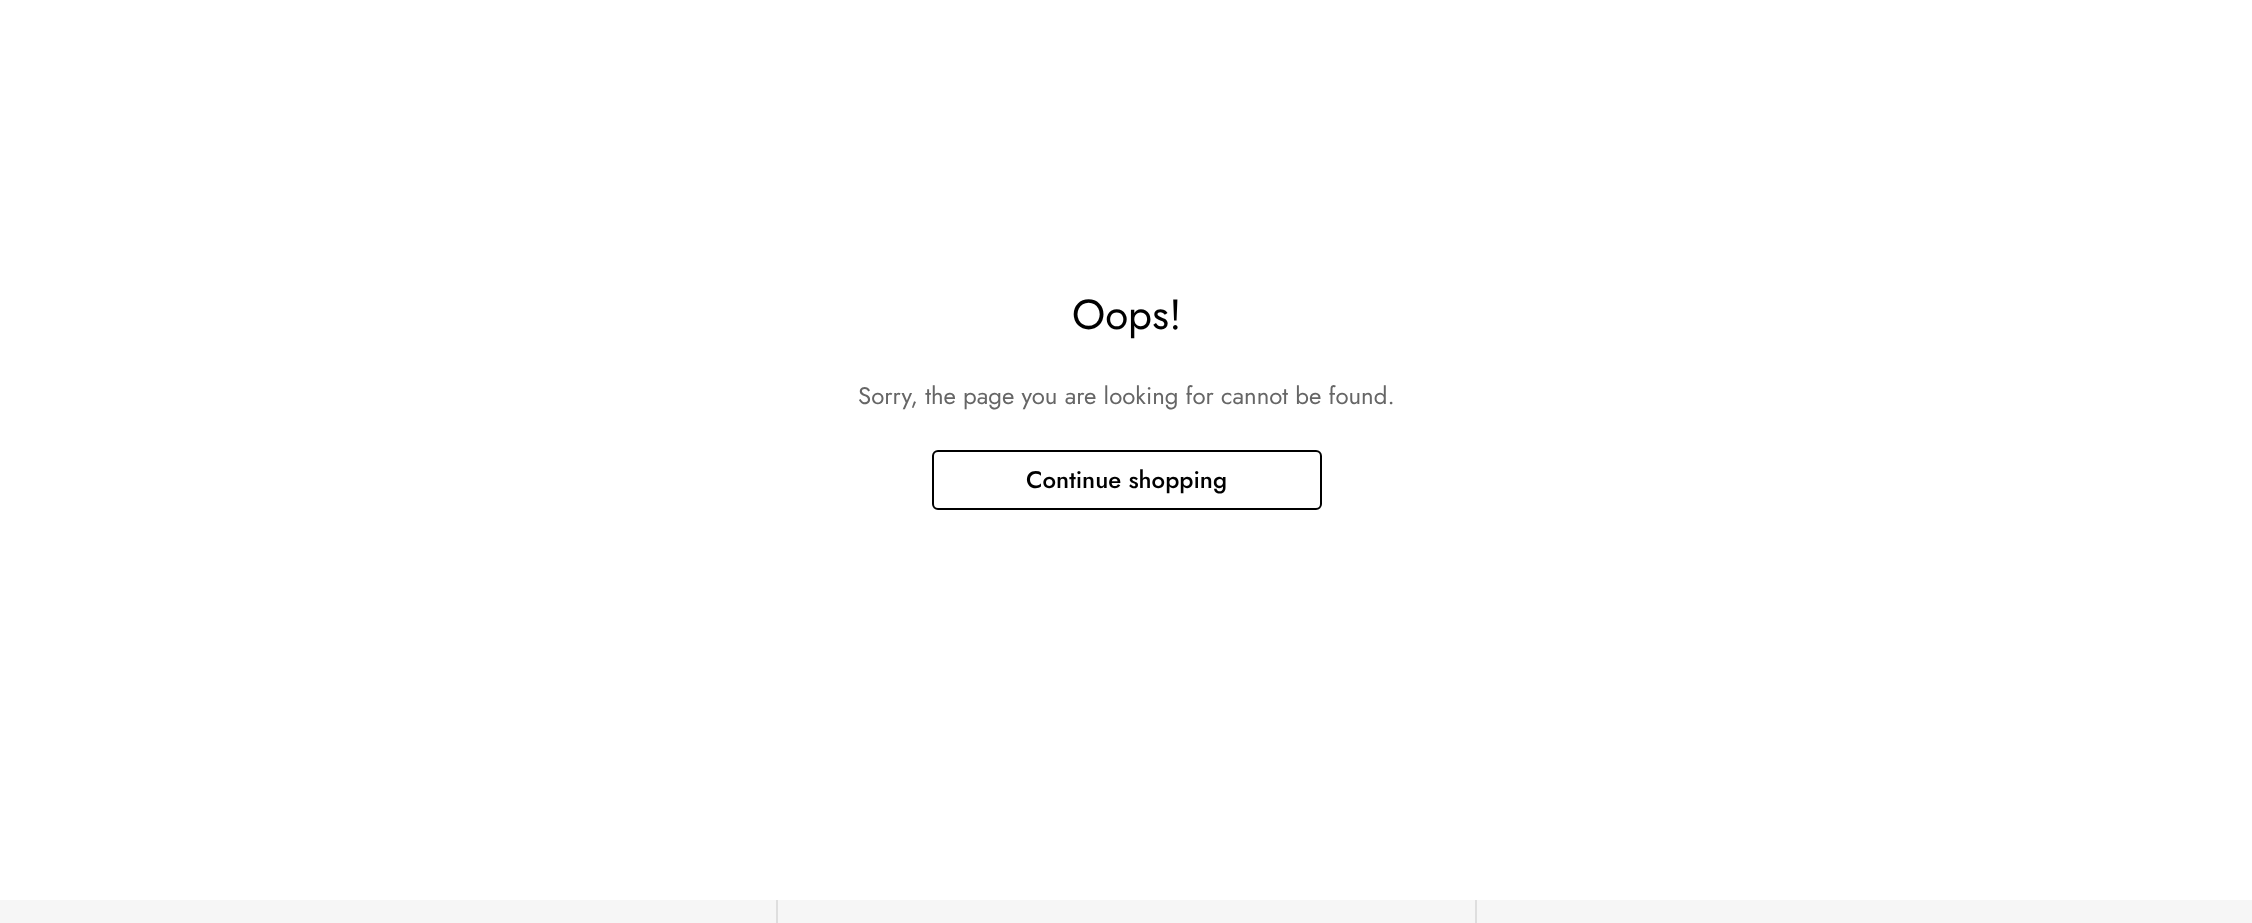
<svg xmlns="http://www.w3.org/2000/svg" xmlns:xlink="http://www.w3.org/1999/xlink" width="2252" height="923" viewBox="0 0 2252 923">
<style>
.cls-1{font:42px Jost;fill:#000000}
.cls-2{font:24px Jost;fill:#666666}
.cls-3{font:500 24px Jost;fill:#000000}
</style>
<rect width="100%" height="100%" fill="#ffffff"/>
<rect fill="none" stroke="#000000" stroke-width="2" x="933" y="451" width="388" height="58" rx="5"/>
<rect fill="#f6f6f6" x="0" y="900" width="2252" height="23"/>
<rect fill="#dedede" x="776" y="900" width="2" height="23"/>
<rect fill="#dedede" x="1475" y="900" width="2" height="23"/>
<text class="cls-1" x="1072" y="329">Oops!</text>
<text class="cls-2" x="858" y="404">Sorry, the page you are looking for cannot be found.</text>
<text class="cls-3" x="1026" y="488">Continue shopping</text>
</svg>
